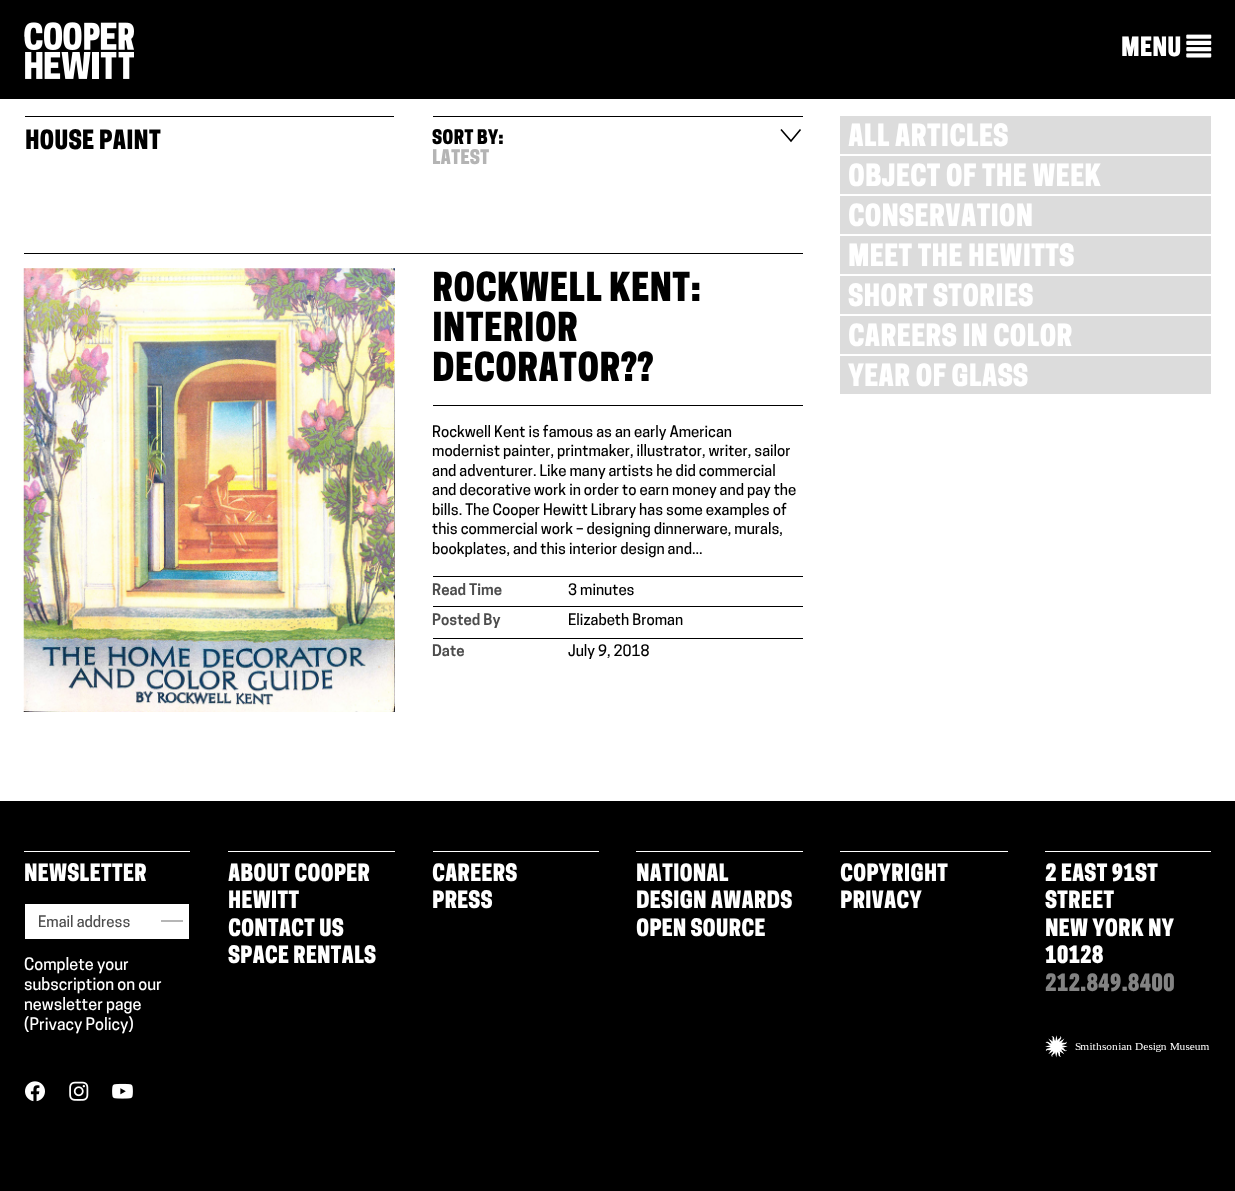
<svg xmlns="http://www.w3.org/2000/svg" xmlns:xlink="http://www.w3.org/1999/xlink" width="1235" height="1191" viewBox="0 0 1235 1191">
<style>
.cls-1{font:600 25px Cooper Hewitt;fill:#ffffff}
.cls-2{font:600 25px Cooper Hewitt;fill:#000000}
.cls-3{font:600 19px Cooper Hewitt;fill:#000000}
.cls-4{font:600 19px Cooper Hewitt;fill:#b4b4b4}
.cls-5{font:600 37.5px Cooper Hewitt;fill:#000000}
.cls-6{font:500 15px Cooper Hewitt;fill:#000000}
.cls-7{font:600 15px 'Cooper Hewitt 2';fill:#4d4d4d}
.cls-8{font:600 28.75px Cooper Hewitt;fill:#ffffff}
.cls-9{font:600 22.5px Cooper Hewitt;fill:#ffffff}
.cls-10{font:500 15px Cooper Hewitt;fill:#4d4d4d}
.cls-11{font:500 16.25px Cooper Hewitt;fill:#ffffff}
.cls-12{font:600 22.5px Cooper Hewitt;fill:#838383}
</style>
<rect width="100%" height="100%" fill="#ffffff"/>
<rect fill="#000000" x="0" y="0" width="1235" height="99"/>
<image xlink:href="image0.png" x="24" y="22" width="110" height="57"/>
<image xlink:href="image1.png" x="1186" y="34" width="26" height="24"/>
<rect fill="#000000" x="25" y="116" width="369" height="1"/>
<rect fill="#000000" x="433" y="116" width="370" height="1"/>
<path fill="none" stroke="#000000" stroke-width="1.6" d="M800.5 129.5L791 141L781 129.5"/>
<rect fill="#000000" x="24" y="253" width="779" height="1"/>
<image xlink:href="image2.png" x="23" y="268" width="372" height="444"/>
<rect fill="#000000" x="433" y="405" width="370" height="1"/>
<rect fill="#000000" x="433" y="576" width="370" height="1"/>
<rect fill="#000000" x="433" y="606" width="370" height="1"/>
<rect fill="#000000" x="433" y="638" width="370" height="1"/>
<rect fill="#dcdcdc" x="840" y="116" width="371" height="38"/>
<rect fill="#dcdcdc" x="840" y="156" width="371" height="38"/>
<rect fill="#dcdcdc" x="840" y="196" width="371" height="38"/>
<rect fill="#dcdcdc" x="840" y="236" width="371" height="38"/>
<rect fill="#dcdcdc" x="840" y="276" width="371" height="38"/>
<rect fill="#dcdcdc" x="840" y="316" width="371" height="38"/>
<rect fill="#dcdcdc" x="840" y="356" width="371" height="38"/>
<rect fill="#000000" x="0" y="801" width="1235" height="390"/>
<rect fill="#ffffff" x="24" y="851" width="166" height="1"/>
<rect fill="#ffffff" x="25" y="904" width="164" height="35"/>
<rect fill="#b6b6b6" x="161" y="920" width="22" height="2"/>
<image xlink:href="image3.png" x="25" y="1081" width="20" height="21"/>
<image xlink:href="image4.png" x="69" y="1081" width="20" height="20"/>
<image xlink:href="image5.png" x="112" y="1083" width="21" height="16"/>
<rect fill="#ffffff" x="228" y="851" width="167" height="1"/>
<rect fill="#ffffff" x="433" y="851" width="166" height="1"/>
<rect fill="#ffffff" x="636" y="851" width="167" height="1"/>
<rect fill="#ffffff" x="840" y="851" width="168" height="1"/>
<rect fill="#ffffff" x="1045" y="851" width="166" height="1"/>
<image xlink:href="image6.png" x="1045" y="1035" width="165" height="23"/>
<text class="cls-1" x="1121" y="56">MENU</text>
<text class="cls-2" x="25" y="149">HOUSE PAINT</text>
<text class="cls-3" x="432" y="144">SORT BY:</text>
<text class="cls-4" x="432" y="164">LATEST</text>
<text class="cls-5"><tspan x="432" y="301">ROCKWELL KENT:</tspan><tspan x="432" y="341">INTERIOR</tspan><tspan x="432" y="381">DECORATOR??</tspan></text>
<text class="cls-6"><tspan x="432" y="437">Rockwell Kent is famous as an early American</tspan><tspan x="432" y="456">modernist painter, printmaker, illustrator, writer, sailor</tspan><tspan x="432" y="476">and adventurer. Like many artists he did commercial</tspan><tspan x="432" y="495">and decorative work in order to earn money and pay the</tspan><tspan x="432" y="515">bills. The Cooper Hewitt Library has some examples of</tspan><tspan x="432" y="534">this commercial work – designing dinnerware, murals,</tspan><tspan x="432" y="554">bookplates, and this interior design and...</tspan></text>
<text class="cls-7" x="432" y="595">Read Time</text>
<text class="cls-6" x="568" y="595">3 minutes</text>
<text class="cls-7" x="432" y="625">Posted By</text>
<text class="cls-6" x="568" y="625">Elizabeth Broman</text>
<text class="cls-7" x="432" y="656">Date</text>
<text class="cls-6" x="568" y="656">July 9, 2018</text>
<text class="cls-8"><tspan x="848" y="146">ALL ARTICLES</tspan><tspan x="848" y="186">OBJECT OF THE WEEK</tspan><tspan x="848" y="226">CONSERVATION</tspan><tspan x="848" y="266">MEET THE HEWITTS</tspan><tspan x="848" y="306">SHORT STORIES</tspan><tspan x="848" y="346">CAREERS IN COLOR</tspan><tspan x="848" y="386">YEAR OF GLASS</tspan></text>
<text class="cls-9" x="24" y="881">NEWSLETTER</text>
<text class="cls-10" x="38" y="927">Email address</text>
<text class="cls-11"><tspan x="24" y="970">Complete your</tspan><tspan x="24" y="990">subscription on our</tspan><tspan x="24" y="1010">newsletter page</tspan><tspan x="24" y="1030">(Privacy Policy)</tspan></text>
<text class="cls-9"><tspan x="228" y="881">ABOUT COOPER</tspan><tspan x="228" y="908">HEWITT</tspan><tspan x="228" y="936">CONTACT US</tspan><tspan x="228" y="963">SPACE RENTALS</tspan></text>
<text class="cls-9"><tspan x="432" y="881">CAREERS</tspan><tspan x="432" y="908">PRESS</tspan></text>
<text class="cls-9"><tspan x="636" y="881">NATIONAL</tspan><tspan x="636" y="908">DESIGN AWARDS</tspan><tspan x="636" y="936">OPEN SOURCE</tspan></text>
<text class="cls-9"><tspan x="840" y="881">COPYRIGHT</tspan><tspan x="840" y="908">PRIVACY</tspan></text>
<text class="cls-9"><tspan x="1045" y="881">2 EAST 91ST</tspan><tspan x="1045" y="908">STREET</tspan><tspan x="1045" y="936">NEW YORK NY</tspan><tspan x="1045" y="963">10128</tspan></text>
<text class="cls-12" x="1045" y="991">212.849.8400</text>
</svg>
